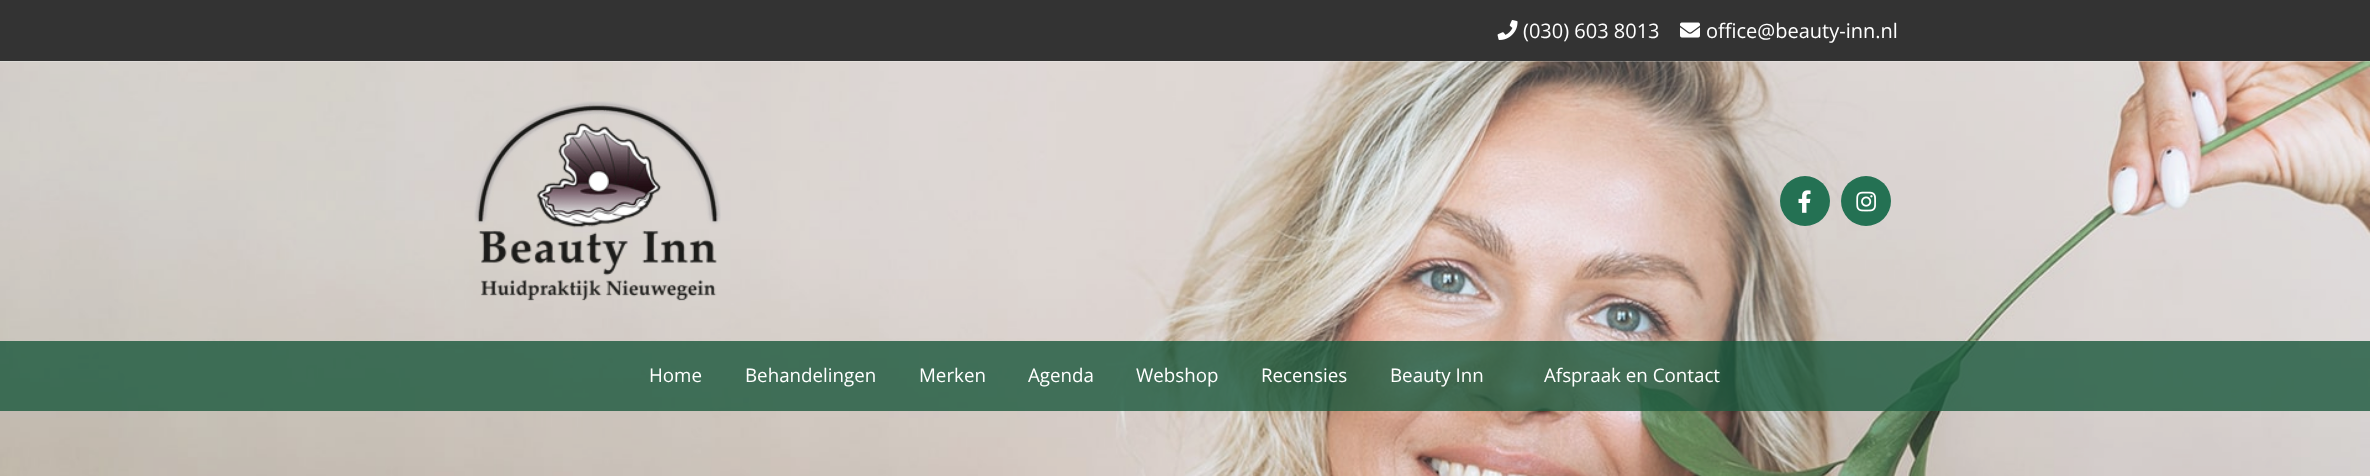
<svg xmlns="http://www.w3.org/2000/svg" xmlns:xlink="http://www.w3.org/1999/xlink" width="2370" height="476" viewBox="0 0 2370 476">
<style>
.cls-1{font:20px Open Sans;fill:#ffffff}
.cls-2{font:18.75px Open Sans;fill:#ffffff}
</style>
<rect width="100%" height="100%" fill="#ffffff"/>
<rect fill="#333333" x="0" y="0" width="2370" height="61"/>
<image xlink:href="image0.png" x="1497" y="20" width="21" height="20"/>
<image xlink:href="image1.png" x="1680" y="22" width="20" height="16"/>
<image xlink:href="image2.png" x="0" y="61" width="2370" height="415"/>
<rect fill="#ffffff" fill-opacity="0.1" x="0" y="61" width="2370" height="280"/>
<image xlink:href="image3.png" x="474" y="101" width="247" height="200"/>
<circle fill="#247153" cx="1805" cy="201" r="25"/>
<image xlink:href="image4.png" x="1798" y="190" width="13" height="23"/>
<circle fill="#247153" cx="1866" cy="201" r="25"/>
<image xlink:href="image5.png" x="1856" y="191" width="20" height="21"/>
<rect fill="#1e5a3f" fill-opacity="0.82" x="0" y="341" width="2370" height="70"/>
<text class="cls-1" x="1523" y="38">(030) 603 8013</text>
<text class="cls-1" x="1706" y="38">office@beauty-inn.nl</text>
<text class="cls-2" x="649" y="382">Home</text>
<text class="cls-2" x="745" y="382">Behandelingen</text>
<text class="cls-2" x="919" y="382">Merken</text>
<text class="cls-2" x="1028" y="382">Agenda</text>
<text class="cls-2" x="1136" y="382">Webshop</text>
<text class="cls-2" x="1261" y="382">Recensies</text>
<text class="cls-2" x="1390" y="382">Beauty Inn</text>
<text class="cls-2" x="1544" y="382">Afspraak en Contact</text>
</svg>
